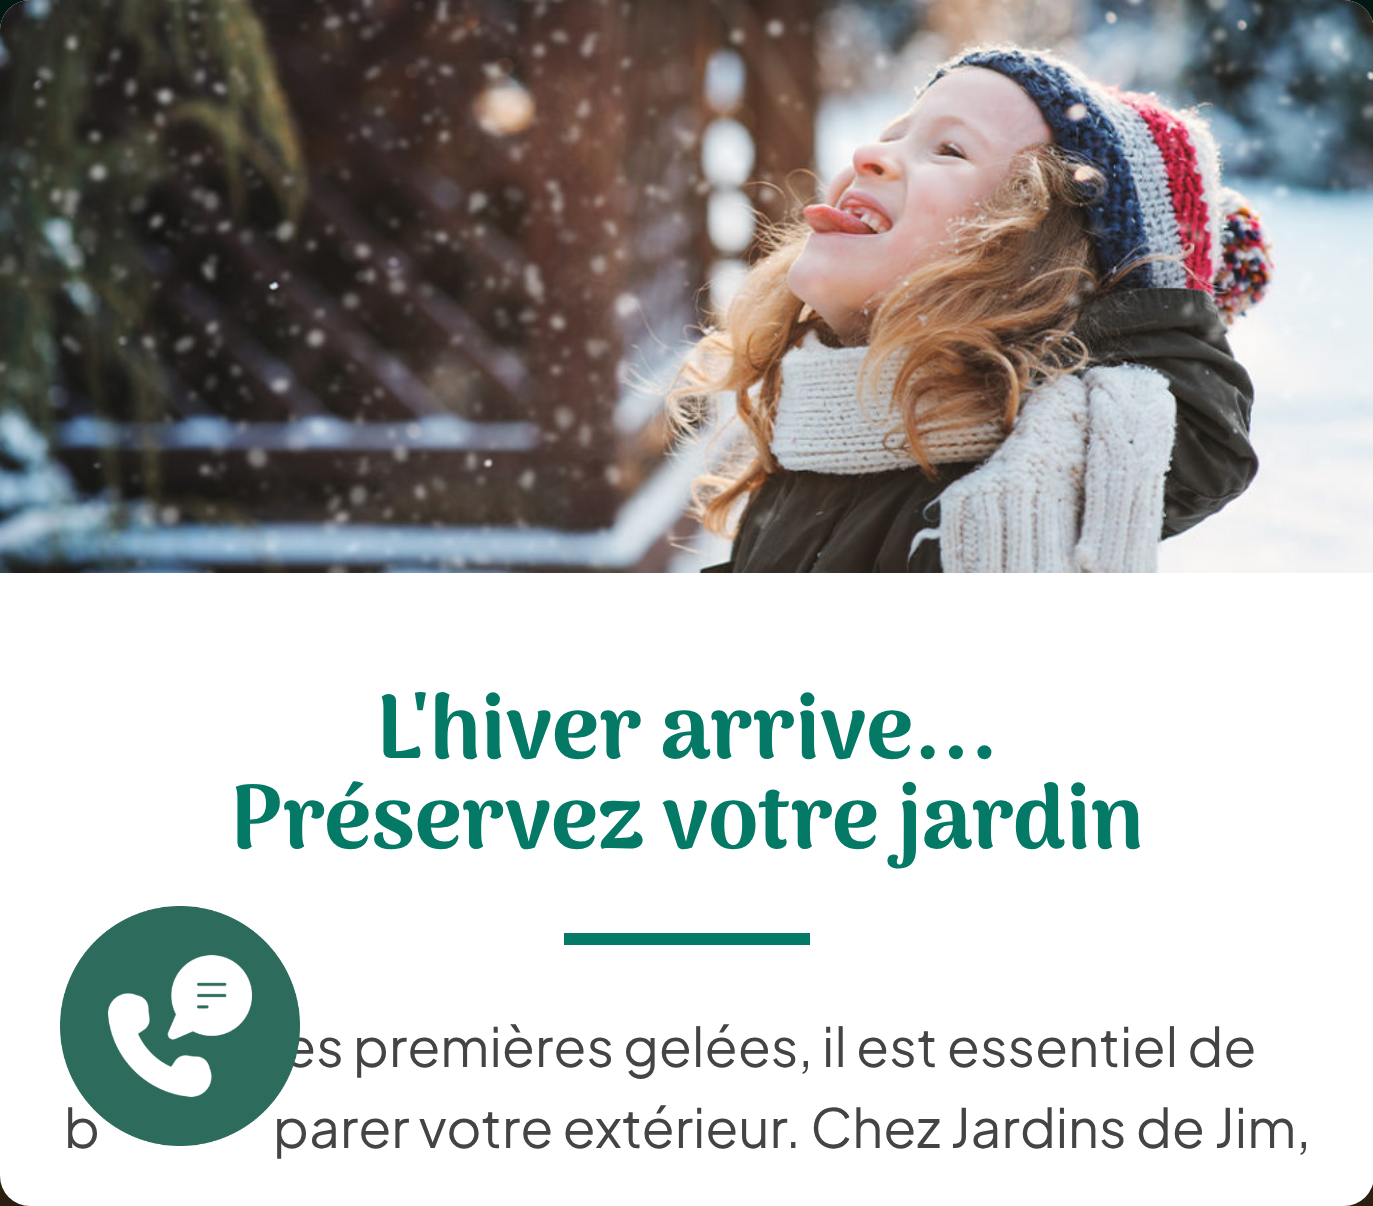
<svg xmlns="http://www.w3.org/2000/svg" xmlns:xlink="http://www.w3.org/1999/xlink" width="1373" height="1206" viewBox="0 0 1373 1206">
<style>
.cls-1{font:bold 90px Arima;fill:#037966}
.cls-2{font:54px Plus Jakarta Sans;fill:#444444}
</style>
<rect width="100%" height="100%" fill="#011814"/>
<rect fill="#2c1f0f" x="0" y="1176" width="1373" height="30"/>
<rect fill="#ffffff" x="0" y="0" width="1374" height="1206" rx="30"/>
<image xlink:href="image0.png" x="0" y="0" width="1373" height="573"/>
<rect fill="#037966" x="564" y="933" width="246" height="12"/>
<text class="cls-1" x="376" y="758">L'hiver arrive...</text>
<text class="cls-1" x="230" y="848">Préservez votre jardin</text>
<text class="cls-2" x="283" y="1067">es premières gelées, il est essentiel de</text>
<text class="cls-2" x="64" y="1148">b</text>
<text class="cls-2" x="273" y="1148">parer votre extérieur. Chez Jardins de Jim,</text>
<image xlink:href="image1.png" x="60" y="906" width="240" height="240"/>
</svg>
